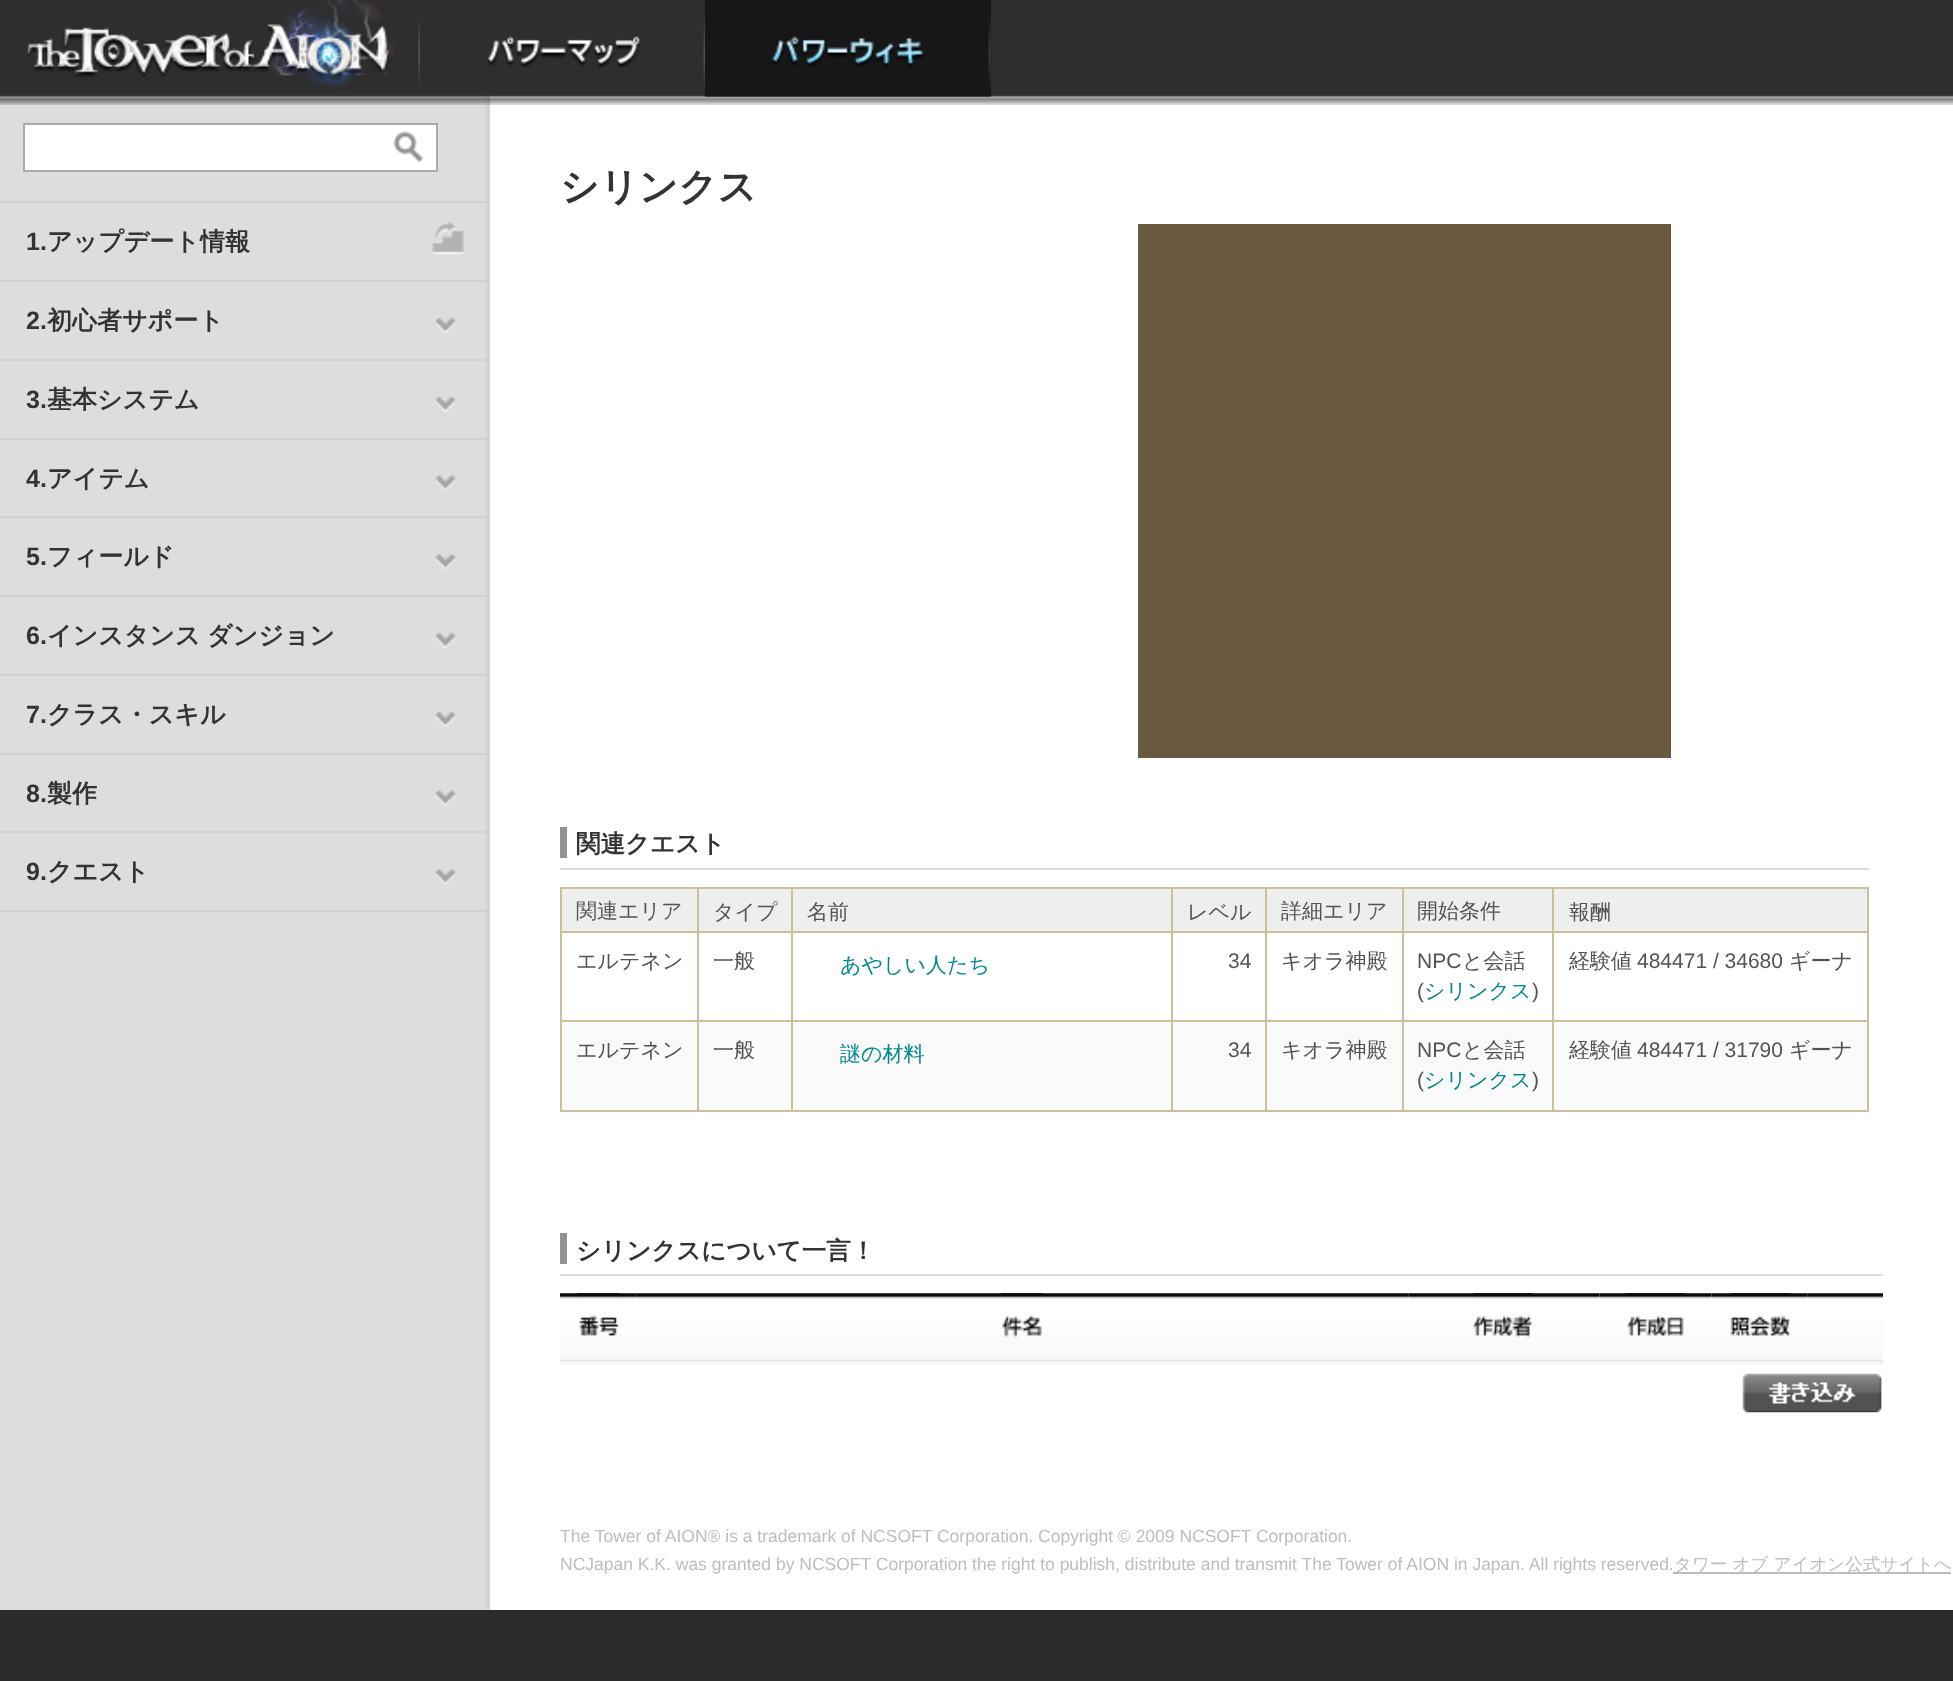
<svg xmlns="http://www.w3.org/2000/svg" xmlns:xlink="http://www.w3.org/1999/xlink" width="1953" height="1681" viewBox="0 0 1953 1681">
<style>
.cls-1{font:bold 25px Liberation Sans;fill:#333333}
.cls-2{font:bold 25px WenQuanYi Zen Hei;fill:#333333}
.cls-3{font:bold 38.5px WenQuanYi Zen Hei;fill:#333333}
.cls-4{font:bold 24.5px WenQuanYi Zen Hei;fill:#333333}
.cls-5{font:500 21px WenQuanYi Zen Hei;fill:#535352}
.cls-6{font:500 21px WenQuanYi Zen Hei;fill:#01888e}
.cls-7{font:21px Liberation Sans;fill:#535352}
.cls-8{font:17.5px Liberation Sans;fill:#bdbdbd}
.cls-9{font:500 17.5px WenQuanYi Zen Hei;fill:#bdbdbd}
</style>
<rect width="100%" height="100%" fill="#2c2c2c"/>
<rect fill="#ffffff" x="490" y="95" width="1463" height="1515"/>
<image xlink:href="image7.png" x="0" y="95" width="490" height="1515"/>
<image xlink:href="image0.png" x="0" y="0" width="1953" height="105"/>
<image xlink:href="image1.png" x="418" y="20" width="2" height="67"/>
<image xlink:href="image2.png" x="27" y="0" width="368" height="91"/>
<image xlink:href="image3.png" x="703" y="20" width="3" height="67"/>
<image xlink:href="image4.png" x="487" y="36" width="218" height="32"/>
<rect fill="#000000" fill-opacity="0.5" x="705" y="0" width="286" height="97"/>
<image xlink:href="image5.png" x="988" y="20" width="3" height="66"/>
<image xlink:href="image6.png" x="771" y="36" width="152" height="31"/>
<rect fill="#d1d1d1" x="0" y="201" width="490" height="2"/>
<rect fill="#ffffff" stroke="#ababab" stroke-width="2" x="24" y="124" width="413" height="47"/>
<image xlink:href="image8.png" x="393" y="131" width="31" height="32"/>
<rect fill="#d1d1d1" x="0" y="280" width="490" height="2"/>
<image xlink:href="image9.png" x="432" y="221" width="32" height="34"/>
<rect fill="#d1d1d1" x="0" y="359" width="490" height="2"/>
<image xlink:href="image10.png" x="435" y="317" width="21" height="16"/>
<rect fill="#d1d1d1" x="0" y="438" width="490" height="2"/>
<image xlink:href="image11.png" x="435" y="396" width="21" height="16"/>
<rect fill="#d1d1d1" x="0" y="516" width="490" height="2"/>
<image xlink:href="image12.png" x="435" y="474" width="21" height="17"/>
<rect fill="#d1d1d1" x="0" y="595" width="490" height="2"/>
<image xlink:href="image13.png" x="435" y="553" width="21" height="17"/>
<rect fill="#d1d1d1" x="0" y="674" width="490" height="2"/>
<image xlink:href="image10.png" x="435" y="632" width="21" height="16"/>
<rect fill="#d1d1d1" x="0" y="753" width="490" height="2"/>
<image xlink:href="image11.png" x="435" y="711" width="21" height="16"/>
<rect fill="#d1d1d1" x="0" y="831" width="490" height="2"/>
<image xlink:href="image12.png" x="435" y="789" width="21" height="17"/>
<rect fill="#d1d1d1" x="0" y="910" width="490" height="2"/>
<image xlink:href="image13.png" x="435" y="868" width="21" height="17"/>
<rect fill="#695a3f" x="1138" y="224" width="533" height="534"/>
<rect fill="#dddddd" x="560" y="868" width="1309" height="2"/>
<rect fill="#929292" x="560" y="827" width="7" height="31"/>
<rect fill="#cebe9c" x="560" y="887" width="1309" height="2"/>
<rect fill="#cebe9c" x="1867" y="887" width="2" height="224"/>
<rect fill="#cebe9c" x="560" y="1110" width="1309" height="2"/>
<rect fill="#cebe9c" x="560" y="887" width="2" height="224"/>
<rect fill="#eeeeee" x="562" y="889" width="1305" height="42"/>
<rect fill="#cebe9c" x="1552" y="931" width="317" height="2"/>
<rect fill="#cebe9c" x="1552" y="1020" width="317" height="2"/>
<rect fill="#fafafa" x="562" y="1022" width="1305" height="88"/>
<rect fill="#cebe9c" x="1552" y="1020" width="2" height="91"/>
<rect fill="#cebe9c" x="1402" y="1020" width="152" height="2"/>
<rect fill="#cebe9c" x="1552" y="931" width="2" height="91"/>
<rect fill="#cebe9c" x="1402" y="931" width="152" height="2"/>
<rect fill="#cebe9c" x="1402" y="1020" width="2" height="91"/>
<rect fill="#cebe9c" x="1265" y="1020" width="139" height="2"/>
<rect fill="#cebe9c" x="1402" y="931" width="2" height="91"/>
<rect fill="#cebe9c" x="1265" y="931" width="139" height="2"/>
<rect fill="#cebe9c" x="1265" y="1020" width="2" height="91"/>
<rect fill="#cebe9c" x="1171" y="1020" width="96" height="2"/>
<rect fill="#cebe9c" x="1265" y="931" width="2" height="91"/>
<rect fill="#cebe9c" x="1171" y="931" width="96" height="2"/>
<rect fill="#cebe9c" x="1171" y="1020" width="2" height="91"/>
<rect fill="#cebe9c" x="791" y="1020" width="382" height="2"/>
<rect fill="#cebe9c" x="1171" y="931" width="2" height="91"/>
<rect fill="#cebe9c" x="791" y="931" width="382" height="2"/>
<rect fill="#cebe9c" x="791" y="1020" width="2" height="91"/>
<rect fill="#cebe9c" x="697" y="1020" width="96" height="2"/>
<rect fill="#cebe9c" x="791" y="931" width="2" height="91"/>
<rect fill="#cebe9c" x="697" y="931" width="96" height="2"/>
<rect fill="#cebe9c" x="697" y="1020" width="2" height="91"/>
<rect fill="#cebe9c" x="560" y="1020" width="138" height="2"/>
<rect fill="#cebe9c" x="697" y="931" width="2" height="91"/>
<rect fill="#cebe9c" x="560" y="931" width="138" height="2"/>
<rect fill="#cebe9c" x="697" y="887" width="2" height="46"/>
<rect fill="#cebe9c" x="791" y="887" width="2" height="46"/>
<rect fill="#cebe9c" x="1171" y="887" width="2" height="46"/>
<rect fill="#cebe9c" x="1265" y="887" width="2" height="46"/>
<rect fill="#cebe9c" x="1402" y="887" width="2" height="46"/>
<rect fill="#cebe9c" x="1552" y="887" width="2" height="46"/>
<rect fill="#dddddd" x="560" y="1274" width="1323" height="2"/>
<rect fill="#929292" x="560" y="1233" width="7" height="31"/>
<image xlink:href="image14.png" x="560" y="1293" width="76" height="72"/>
<image xlink:href="image15.png" x="577" y="1293" width="43" height="43"/>
<image xlink:href="image16.png" x="635" y="1293" width="774" height="72"/>
<image xlink:href="image17.png" x="1001" y="1293" width="42" height="45"/>
<image xlink:href="image18.png" x="1408" y="1293" width="192" height="72"/>
<image xlink:href="image19.png" x="1473" y="1293" width="60" height="45"/>
<image xlink:href="image20.png" x="1599" y="1293" width="113" height="72"/>
<image xlink:href="image21.png" x="1625" y="1293" width="61" height="43"/>
<image xlink:href="image22.png" x="1711" y="1293" width="97" height="72"/>
<image xlink:href="image23.png" x="1730" y="1293" width="61" height="44"/>
<image xlink:href="image24.png" x="1807" y="1293" width="76" height="72"/>
<image xlink:href="image25.png" x="1742" y="1373" width="140" height="40"/>
<rect fill="#bdbdbd" x="1673" y="1572" width="278" height="2"/>
<text class="cls-1" x="26" y="250">1.</text>
<text class="cls-2" x="47" y="250">アップデート情報</text>
<text class="cls-1" x="26" y="329">2.</text>
<text class="cls-2" x="47" y="329">初心者サポート</text>
<text class="cls-1" x="26" y="408">3.</text>
<text class="cls-2" x="47" y="408">基本システム</text>
<text class="cls-1" x="26" y="487">4.</text>
<text class="cls-2" x="47" y="487">アイテム</text>
<text class="cls-1" x="26" y="565">5.</text>
<text class="cls-2" x="47" y="565">フィールド</text>
<text class="cls-1" x="26" y="644">6.</text>
<text class="cls-2" x="47" y="644" word-spacing="-1">インスタンス ダンジョン</text>
<text class="cls-1" x="26" y="723">7.</text>
<text class="cls-2" x="47" y="723">クラス・スキル</text>
<text class="cls-1" x="26" y="802">8.</text>
<text class="cls-2" x="47" y="802">製作</text>
<text class="cls-1" x="26" y="880">9.</text>
<text class="cls-2" x="47" y="880">クエスト</text>
<text class="cls-3" x="560" y="200">シリンクス</text>
<text class="cls-4" x="576" y="852">関連クエスト</text>
<text class="cls-5" x="576" y="918">関連エリア</text>
<text class="cls-5" x="713" y="919">タイプ</text>
<text class="cls-5" x="807" y="919">名前</text>
<text class="cls-5" x="1187" y="919">レベル</text>
<text class="cls-5" x="1281" y="918">詳細エリア</text>
<text class="cls-5" x="1417" y="918">開始条件</text>
<text class="cls-5" x="1569" y="919">報酬</text>
<text class="cls-5" x="576" y="968">エルテネン</text>
<text class="cls-5" x="713" y="968">一般</text>
<text class="cls-6" x="840" y="972">あやしい人たち</text>
<text class="cls-7" x="1228" y="968">34</text>
<text class="cls-5" x="1281" y="968">キオラ神殿</text>
<text class="cls-7" x="1417" y="968">NPC</text>
<text class="cls-5" x="1462" y="968">と会話</text>
<text class="cls-7" x="1417" y="998">(</text>
<text class="cls-6" x="1424" y="998">シリンクス</text>
<text class="cls-7" x="1532" y="998">)</text>
<text class="cls-5" x="1569" y="968">経験値</text>
<text class="cls-7" x="1637" y="968">484471 / 34680</text>
<text class="cls-5" x="1789" y="968">ギーナ</text>
<text class="cls-5" x="576" y="1057">エルテネン</text>
<text class="cls-5" x="713" y="1057">一般</text>
<text class="cls-6" x="840" y="1061">謎の材料</text>
<text class="cls-7" x="1228" y="1057">34</text>
<text class="cls-5" x="1281" y="1057">キオラ神殿</text>
<text class="cls-7" x="1417" y="1057">NPC</text>
<text class="cls-5" x="1462" y="1057">と会話</text>
<text class="cls-7" x="1417" y="1087">(</text>
<text class="cls-6" x="1424" y="1087">シリンクス</text>
<text class="cls-7" x="1532" y="1087">)</text>
<text class="cls-5" x="1569" y="1057">経験値</text>
<text class="cls-7" x="1637" y="1057">484471 / 31790</text>
<text class="cls-5" x="1789" y="1057">ギーナ</text>
<text class="cls-4" x="576" y="1259">シリンクスについて一言！</text>
<text class="cls-8"><tspan x="560" y="1542">The Tower of AION® is a trademark of NCSOFT Corporation. Copyright © 2009 NCSOFT Corporation.</tspan><tspan x="560" y="1570">NCJapan K.K. was granted by NCSOFT Corporation the right to publish, distribute and transmit The Tower of AION in Japan. All rights reserved.</tspan></text>
<text class="cls-9" x="1674" y="1570">タワー オブ アイオン公式サイトへ</text>
</svg>
